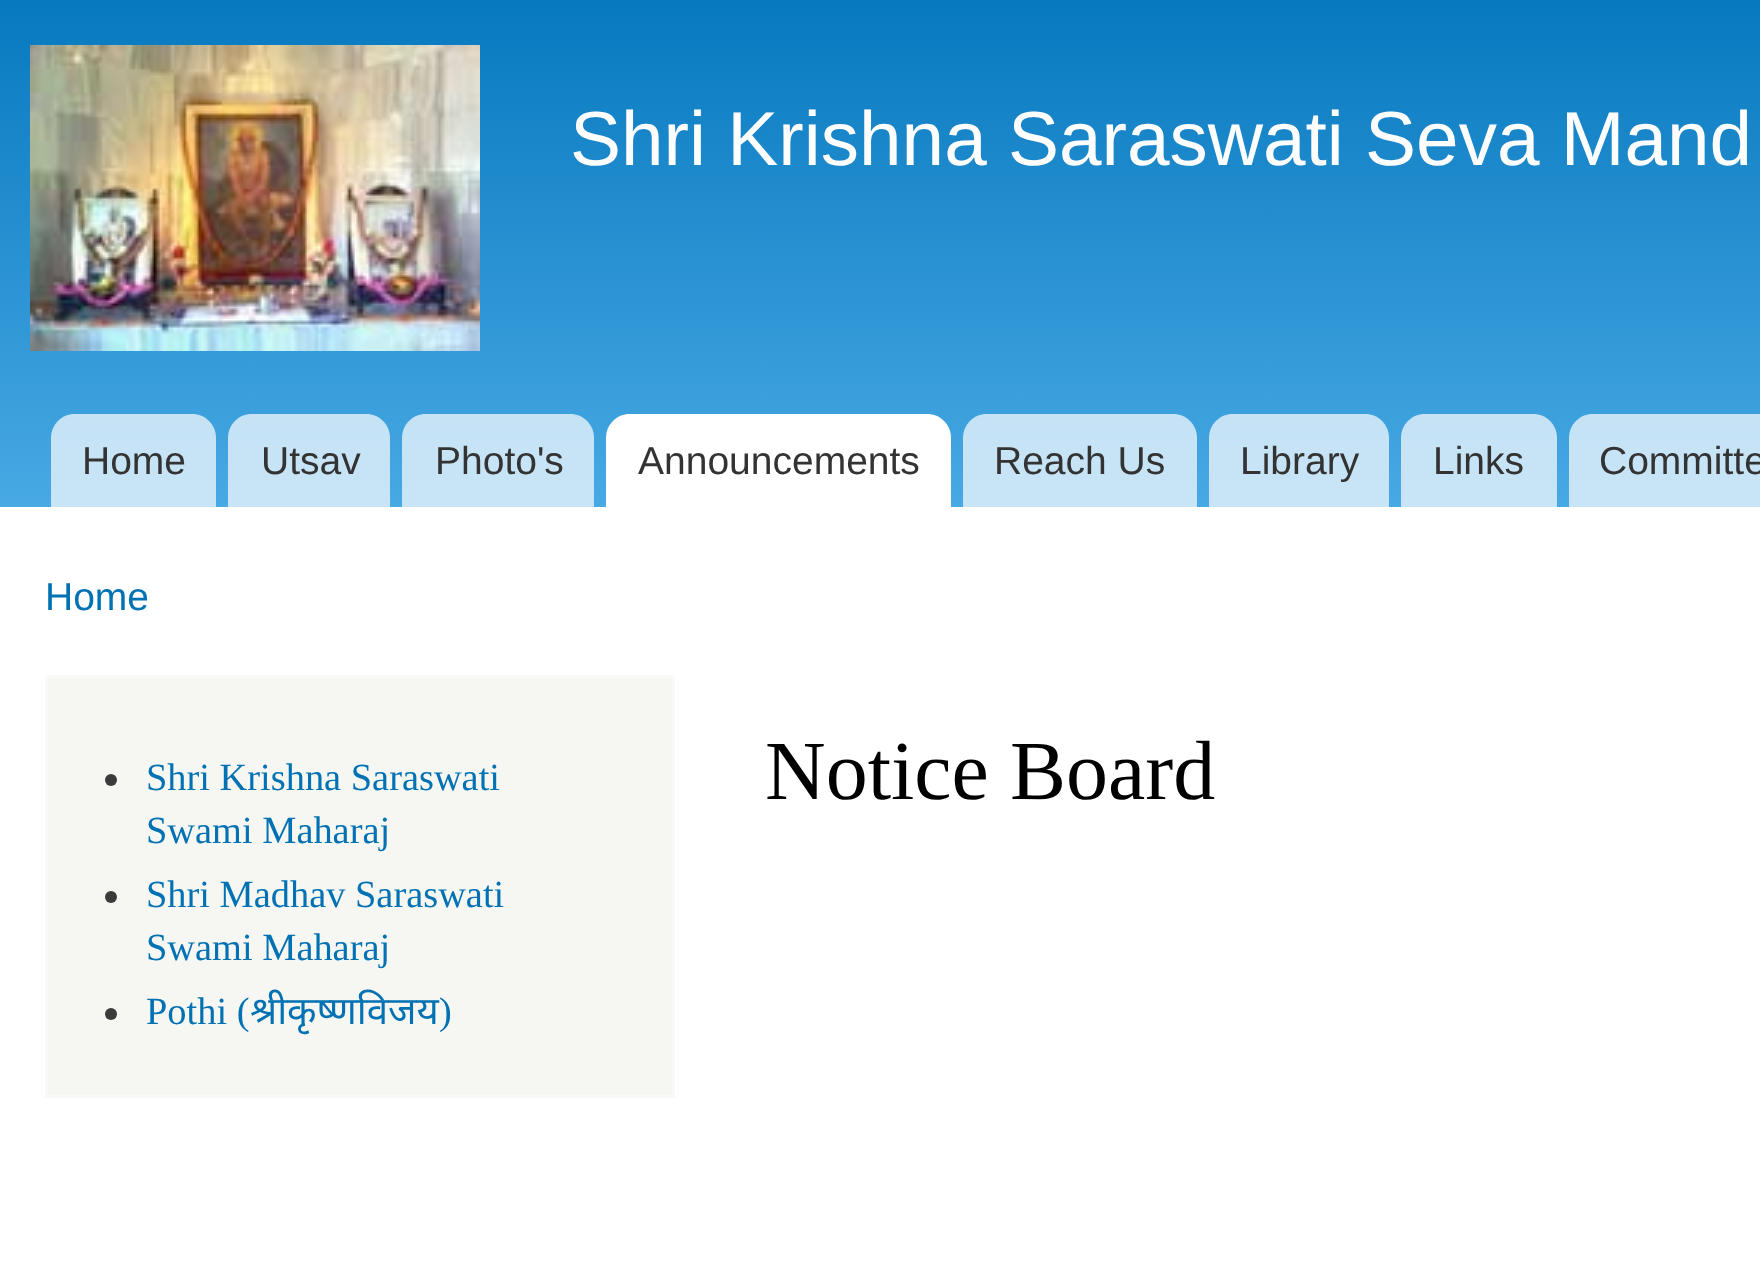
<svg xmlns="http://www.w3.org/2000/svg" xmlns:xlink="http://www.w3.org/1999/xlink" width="1760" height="1276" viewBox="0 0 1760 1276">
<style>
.cls-1{font:76.5px Liberation Sans;fill:#fffeff}
.cls-2{font:39px Liberation Sans;fill:#333333}
.cls-3{font:39px Liberation Sans;fill:#0071b3}
.cls-4{font:38.4px Liberation Serif;fill:#0071b3}
.cls-5{font:38.4px Noto Sans;fill:#0071b3}
.cls-6{font:84px Liberation Serif;fill:#000000}
</style>
<defs>
<linearGradient id="g1" gradientUnits="userSpaceOnUse" x1="1440" y1="0" x2="1440" y2="507"><stop offset="0" stop-color="#0779bf"/><stop offset="1" stop-color="#48a9e4"/></linearGradient>
</defs>
<rect width="100%" height="100%" fill="#ffffff"/>
<rect fill="url(#g1)" x="0" y="0" width="1760" height="507"/>
<image xlink:href="image0.png" x="30" y="45" width="450" height="306"/>
<path fill="#ffffff" fill-opacity="0.7" d="M75 414H192C205.5 414 216 424.5 216 438V507H51V438C51 424.5 61.5 414 75 414Z"/>
<path fill="#ffffff" fill-opacity="0.7" d="M252 414H366C379.5 414 390 424.5 390 438V507H228V438C228 424.5 238.5 414 252 414Z"/>
<path fill="#ffffff" fill-opacity="0.7" d="M426 414H570C583.5 414 594 424.5 594 438V507H402V438C402 424.5 412.5 414 426 414Z"/>
<path fill="#ffffff" d="M630 414H927C940.5 414 951 424.5 951 438V507H606V438C606 424.5 616.5 414 630 414Z"/>
<path fill="#ffffff" fill-opacity="0.7" d="M987 414H1173C1186.5 414 1197 424.5 1197 438V507H963V438C963 424.5 973.5 414 987 414Z"/>
<path fill="#ffffff" fill-opacity="0.7" d="M1233 414H1365C1378.5 414 1389 424.5 1389 438V507H1209V438C1209 424.5 1219.5 414 1233 414Z"/>
<path fill="#ffffff" fill-opacity="0.7" d="M1425 414H1533C1546.5 414 1557 424.5 1557 438V507H1401V438C1401 424.5 1411.5 414 1425 414Z"/>
<path fill="#ffffff" fill-opacity="0.7" d="M1593 414H1760C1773.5 414 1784 424.5 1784 438V507H1569V438C1569 424.5 1579.5 414 1593 414Z"/>
<rect fill="#f6f6f2" stroke="#f9f9f9" stroke-width="3" x="46.5" y="676.5" width="627" height="420"/>
<circle fill="#3b3b3b" cx="111" cy="780" r="6"/>
<circle fill="#3b3b3b" cx="111" cy="897" r="6"/>
<circle fill="#3b3b3b" cx="111" cy="1014" r="6"/>
<text class="cls-1" x="570" y="165">Shri Krishna Saraswati Seva Mand</text>
<text class="cls-2" x="82" y="474">Home</text>
<text class="cls-2" x="261" y="474">Utsav</text>
<text class="cls-2" x="435" y="474">Photo's</text>
<text class="cls-2" x="638" y="474">Announcements</text>
<text class="cls-2" x="994" y="474">Reach Us</text>
<text class="cls-2" x="1240" y="474">Library</text>
<text class="cls-2" x="1433" y="474">Links</text>
<text class="cls-2" x="1599" y="474">Committe</text>
<text class="cls-3" x="45" y="610">Home</text>
<text class="cls-4"><tspan x="146" y="790">Shri Krishna Saraswati</tspan><tspan x="146" y="843">Swami Maharaj</tspan><tspan x="146" y="907">Shri Madhav Saraswati</tspan><tspan x="146" y="960">Swami Maharaj</tspan><tspan x="146" y="1024">Pothi (</tspan></text>
<text class="cls-5" x="250" y="1024">श्रीकृष्णविजय</text>
<text class="cls-4" x="439" y="1024">)</text>
<text class="cls-6" x="765" y="799">Notice Board</text>
</svg>
